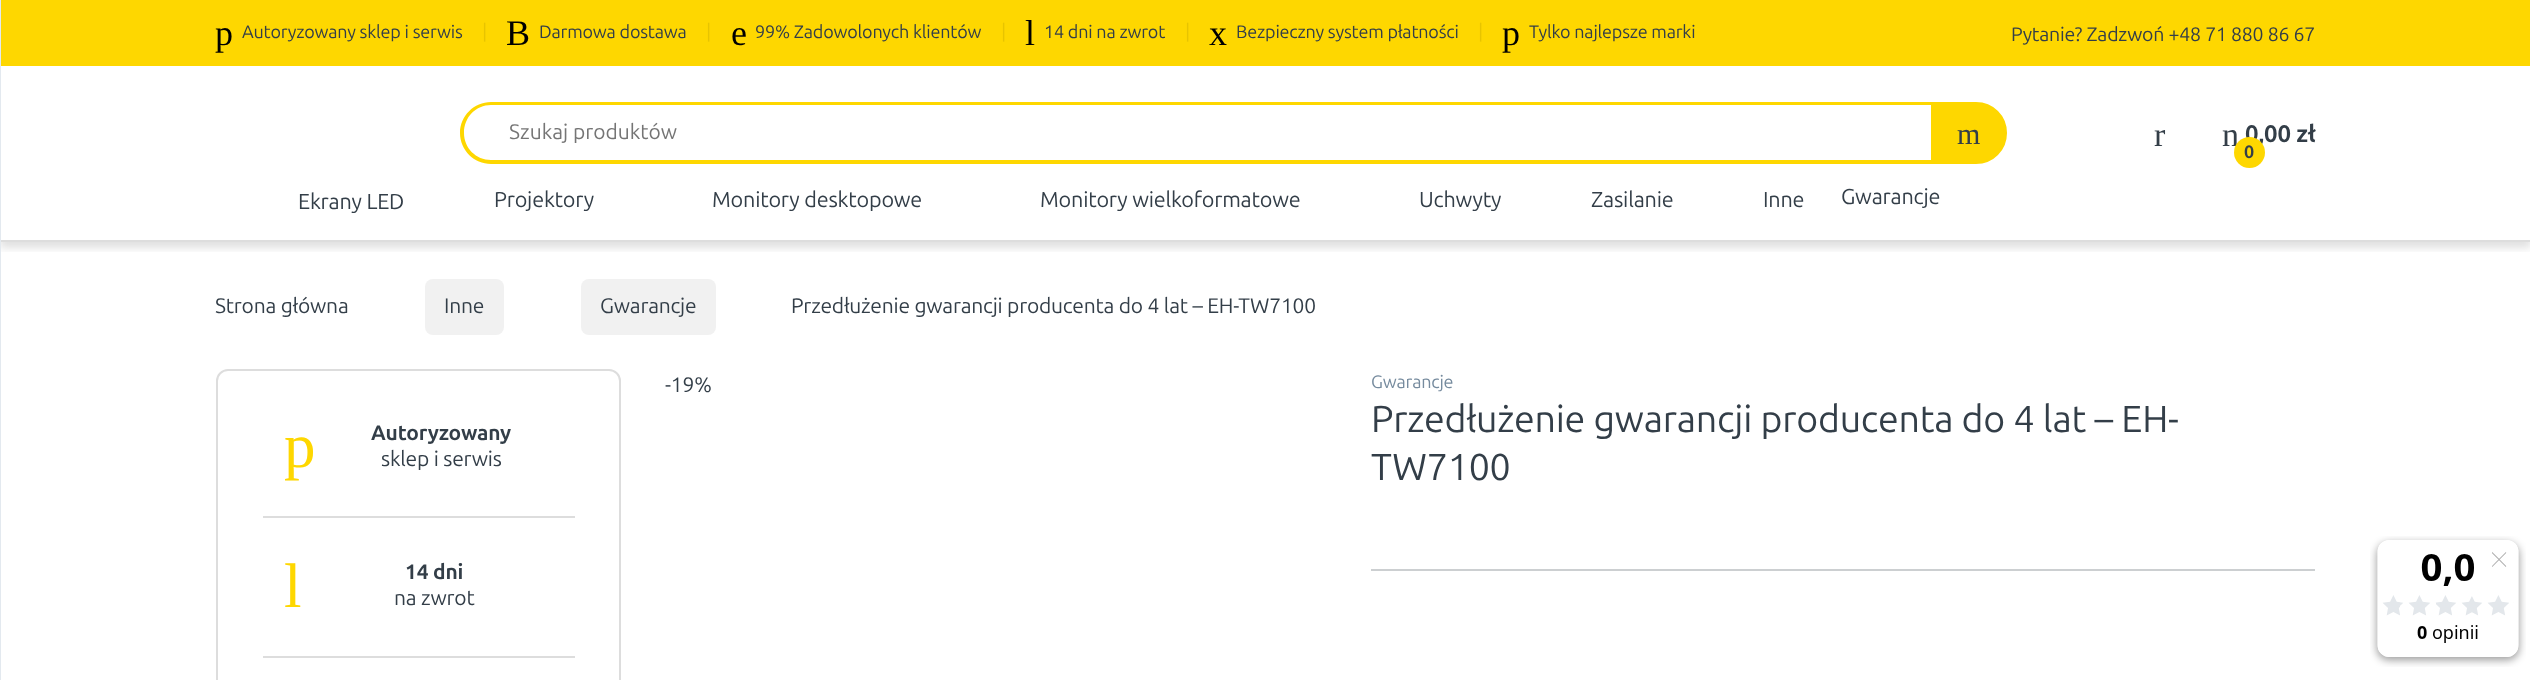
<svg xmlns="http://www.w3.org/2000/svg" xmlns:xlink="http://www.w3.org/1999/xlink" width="2530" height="680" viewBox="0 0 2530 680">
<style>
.cls-1{font:36px Liberation Serif;letter-spacing:-0.2px;fill:#000000}
.cls-2{font:18px Ubuntu;letter-spacing:-0.2px;fill:#333e48}
.cls-3{font:19.5px Ubuntu;letter-spacing:-0.2px;fill:#e7c400}
.cls-4{font:19.5px Ubuntu;letter-spacing:-0.2px;fill:#333e48}
.cls-5{font:21px Ubuntu;fill:#757575}
.cls-6{font:30px Liberation Serif;fill:#333e48}
.cls-7{font:34px Liberation Serif;letter-spacing:-0.2px;fill:#333e48}
.cls-8{font:bold 24px Ubuntu;letter-spacing:-0.2px;fill:#333e48}
.cls-9{font:bold 18px Ubuntu;letter-spacing:-0.2px;fill:#333e48}
.cls-10{font:21.6px Ubuntu;letter-spacing:-0.2px;fill:#333e48}
.cls-11{font:21px Ubuntu;letter-spacing:-0.2px;fill:#333e48}
.cls-12{font:63px Liberation Serif;letter-spacing:-0.2px;fill:#fed700}
.cls-13{font:bold 21px Ubuntu;letter-spacing:-0.2px;fill:#333e48}
.cls-14{font:18px Ubuntu;letter-spacing:-0.2px;fill:#768b9e}
.cls-15{font:37.5px Ubuntu;letter-spacing:-0.2px;fill:#333e48}
</style>
<defs>
<clipPath id="clip1"><rect x="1" y="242" width="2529" height="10"/></clipPath>
</defs>
<rect width="100%" height="100%" fill="#ffffff"/>
<rect fill="#fed700" x="1" y="0" width="2529" height="66"/>
<g clip-path="url(#clip1)">
<rect fill="#000000" fill-opacity="0.12" filter="blur(4.5px)" x="0" y="72" width="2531" height="176"/>
</g>
<rect fill="#dddddd" x="0" y="240" width="2530" height="2"/>
<rect fill="#e3e9ef" x="0" y="0" width="1" height="680"/>
<path fill="#fed700" fill-rule="evenodd" d="M491 102H1932V164H491C474 164 460 150 460 133C460 116 474 102 491 102ZM491 105H1932V160H491C476 160 464 148 464 133C464 117 476 105 491 105Z"/>
<path fill="#fed700" stroke="#fed700" stroke-width="3" d="M1932.5 103.5H1976C1992.5 103.5 2005.5 116.5 2005.5 133C2005.5 149.5 1992.5 162.5 1976 162.5H1932.5Z"/>
<rect fill="#f1f1f1" x="425" y="279" width="79" height="56" rx="8"/>
<rect fill="#f1f1f1" x="581" y="279" width="135" height="56" rx="8"/>
<rect fill="none" stroke="#dddddd" stroke-width="2" x="217" y="370" width="403" height="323" rx="11"/>
<rect fill="#dddddd" x="263" y="516" width="312" height="2"/>
<rect fill="#dddddd" x="263" y="656" width="312" height="2"/>
<rect fill="#cccfd1" x="1371" y="569" width="944" height="2"/>
<image xlink:href="image0.png" x="2370" y="536" width="156" height="131"/>
<text class="cls-1" x="215" y="45">p</text>
<text class="cls-2" x="242" y="38">Autoryzowany sklep i serwis</text>
<text class="cls-3" x="482" y="38">|</text>
<text class="cls-1" x="506" y="45">B</text>
<text class="cls-2" x="539" y="38">Darmowa dostawa</text>
<text class="cls-3" x="706" y="38">|</text>
<text class="cls-1" x="731" y="45">e</text>
<text class="cls-2" x="755" y="38">99% Zadowolonych klientów</text>
<text class="cls-3" x="1001" y="38">|</text>
<text class="cls-1" x="1025" y="45">l</text>
<text class="cls-2" x="1044" y="38">14 dni na zwrot</text>
<text class="cls-3" x="1185" y="38">|</text>
<text class="cls-1" x="1209" y="45">x</text>
<text class="cls-2" x="1236" y="38">Bezpieczny system płatności</text>
<text class="cls-3" x="1478" y="38">|</text>
<text class="cls-1" x="1502" y="45">p</text>
<text class="cls-2" x="1529" y="38">Tylko najlepsze marki</text>
<text class="cls-4" x="2011" y="41">Pytanie? Zadzwoń +48 71 880 86 67</text>
<text class="cls-5" x="509" y="139">Szukaj produktów</text>
<text class="cls-6" x="1957" y="144">m</text>
<text class="cls-7" x="2154" y="146">r</text>
<text class="cls-7" x="2222" y="146">n</text>
<text class="cls-8" x="2245" y="142">0,00 zł</text>
<circle fill="#fed700" cx="2249.5" cy="152.5" r="15.5"/>
<text class="cls-9" x="2244" y="158">0</text>
<text class="cls-10" x="298" y="209">Ekrany LED</text>
<text class="cls-10" x="494" y="207">Projektory</text>
<text class="cls-10" x="712" y="207">Monitory desktopowe</text>
<text class="cls-10" x="1040" y="207">Monitory wielkoformatowe</text>
<text class="cls-10" x="1419" y="207">Uchwyty</text>
<text class="cls-10" x="1591" y="207">Zasilanie</text>
<text class="cls-10" x="1763" y="207">Inne</text>
<text class="cls-10" x="1841" y="204">Gwarancje</text>
<text class="cls-11" x="215" y="313">Strona główna</text>
<text class="cls-11" x="444" y="313">Inne</text>
<text class="cls-11" x="600" y="313">Gwarancje</text>
<text class="cls-11" x="791" y="313">Przedłużenie gwarancji producenta do 4 lat – EH-TW7100</text>
<text class="cls-12" x="284" y="467">p</text>
<text class="cls-13" x="371" y="440">Autoryzowany</text>
<text class="cls-11" x="381" y="466">sklep i serwis</text>
<text class="cls-12" x="284" y="607">l</text>
<text class="cls-13" x="405" y="579">14 dni</text>
<text class="cls-11" x="394" y="605">na zwrot</text>
<text class="cls-11" x="665" y="392">-19%</text>
<text class="cls-14" x="1371" y="388">Gwarancje</text>
<text class="cls-15"><tspan x="1371" y="432">Przedłużenie gwarancji producenta do 4 lat – EH-</tspan><tspan x="1371" y="480">TW7100</tspan></text>
</svg>
